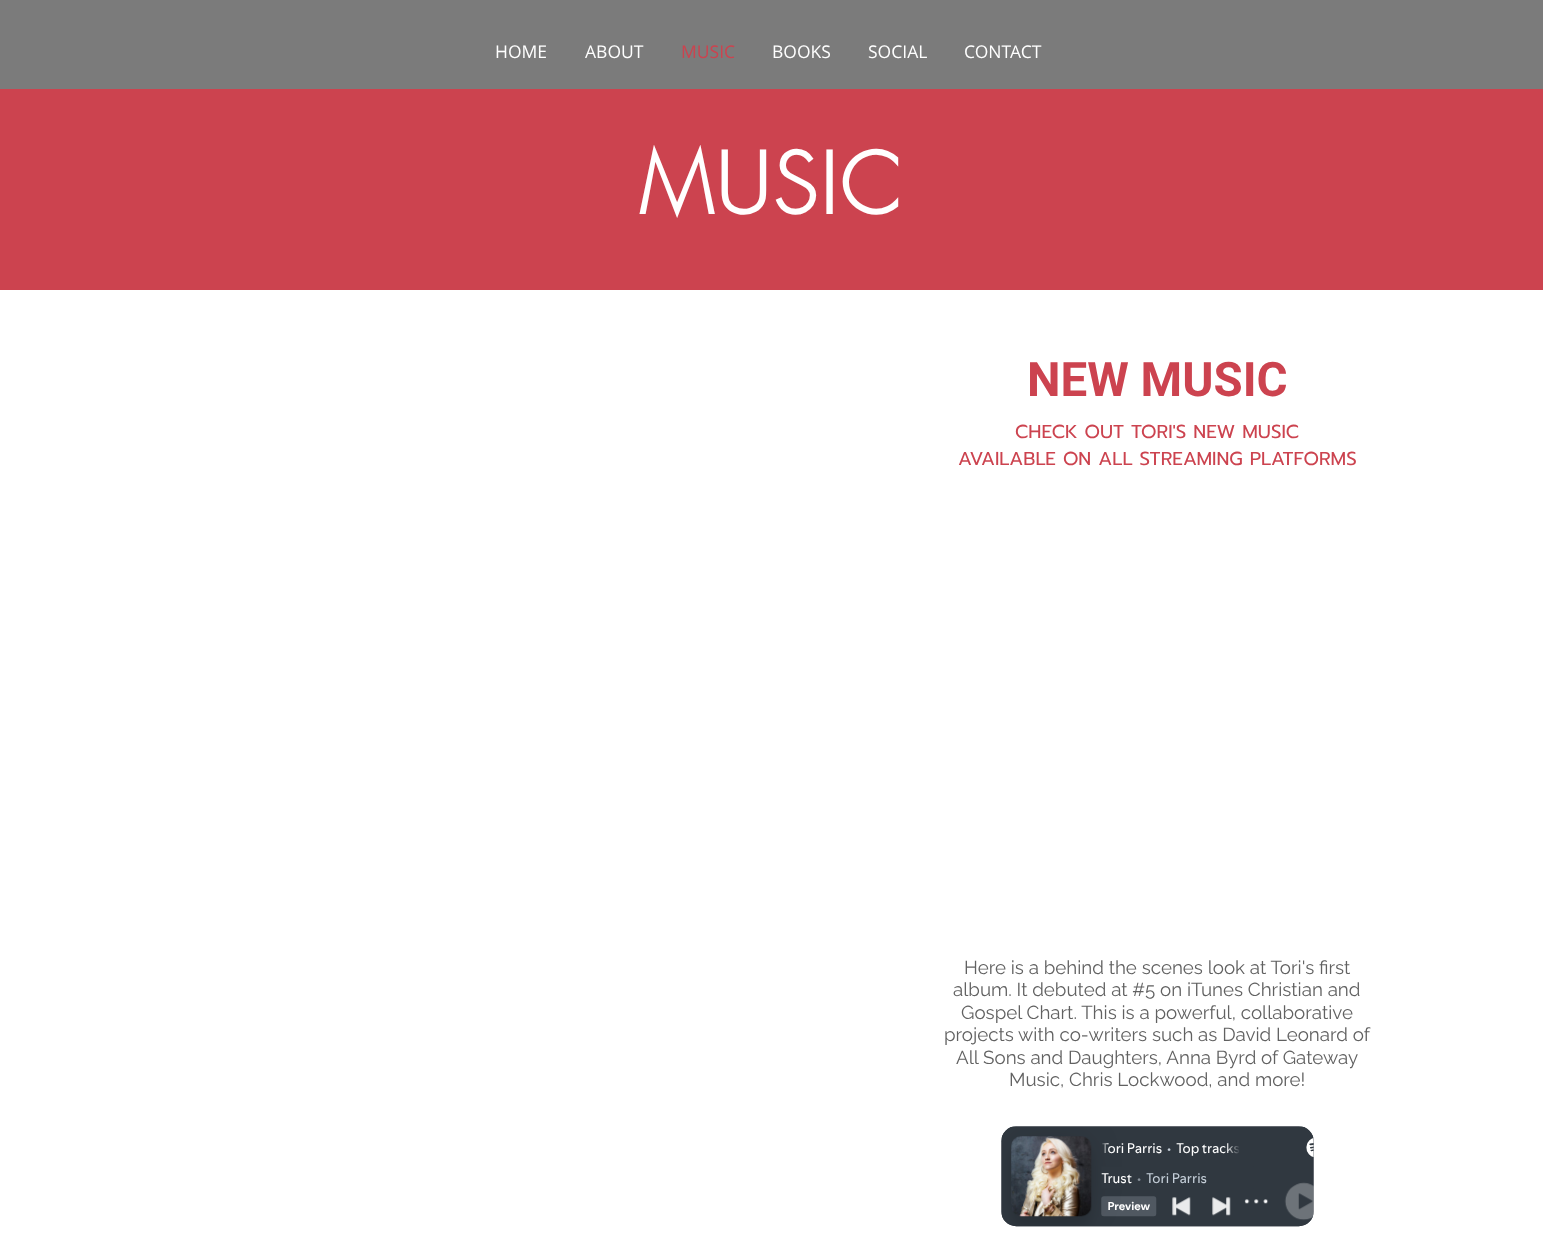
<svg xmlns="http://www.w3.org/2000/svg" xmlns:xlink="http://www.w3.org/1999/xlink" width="1543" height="1260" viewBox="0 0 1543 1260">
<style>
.cls-1{font:17.5px Open Sans;fill:#ffffff}
.cls-2{font:17.5px Open Sans;fill:#cc434f}
.cls-3{font:bold 82.5px futura;letter-spacing:2.5px;fill:#ffffff}
.cls-4{font:bold 47.5px Roboto;fill:#cc434f}
.cls-5{font:18.75px Prompt;fill:#cc434f}
.cls-6{font:18.75px Raleway;fill:#616161}
</style>
<rect width="100%" height="100%" fill="#ffffff"/>
<rect fill="#7b7b7b" x="0" y="0" width="1543" height="89"/>
<rect fill="#cc434f" x="0" y="89" width="1543" height="201"/>
<image xlink:href="image0.png" x="1001" y="1126" width="313" height="101"/>
<text class="cls-1" x="495" y="58">HOME</text>
<text class="cls-1" x="585" y="58">ABOUT</text>
<text class="cls-2" x="681" y="58">MUSIC</text>
<text class="cls-1" x="772" y="58">BOOKS</text>
<text class="cls-1" x="868" y="58">SOCIAL</text>
<text class="cls-1" x="964" y="58">CONTACT</text>
<text class="cls-3" x="639" y="214">MUSIC</text>
<text class="cls-4" x="1027" y="396">NEW MUSIC</text>
<text class="cls-5" x="1015" y="438">CHECK OUT TORI'S NEW MUSIC</text>
<text class="cls-5" x="958" y="465">AVAILABLE ON ALL STREAMING PLATFORMS</text>
<text class="cls-6" x="964" y="974">Here is a behind the scenes look at Tori's first</text>
<text class="cls-6" x="953" y="996">album. It debuted at #5 on iTunes Christian and</text>
<text class="cls-6" x="961" y="1019">Gospel Chart. This is a powerful, collaborative</text>
<text class="cls-6" x="944" y="1041">projects with co-writers such as David Leonard of</text>
<text class="cls-6" x="956" y="1064">All Sons and Daughters, Anna Byrd of Gateway</text>
<text class="cls-6" x="1009" y="1086">Music, Chris Lockwood, and more!</text>
</svg>
